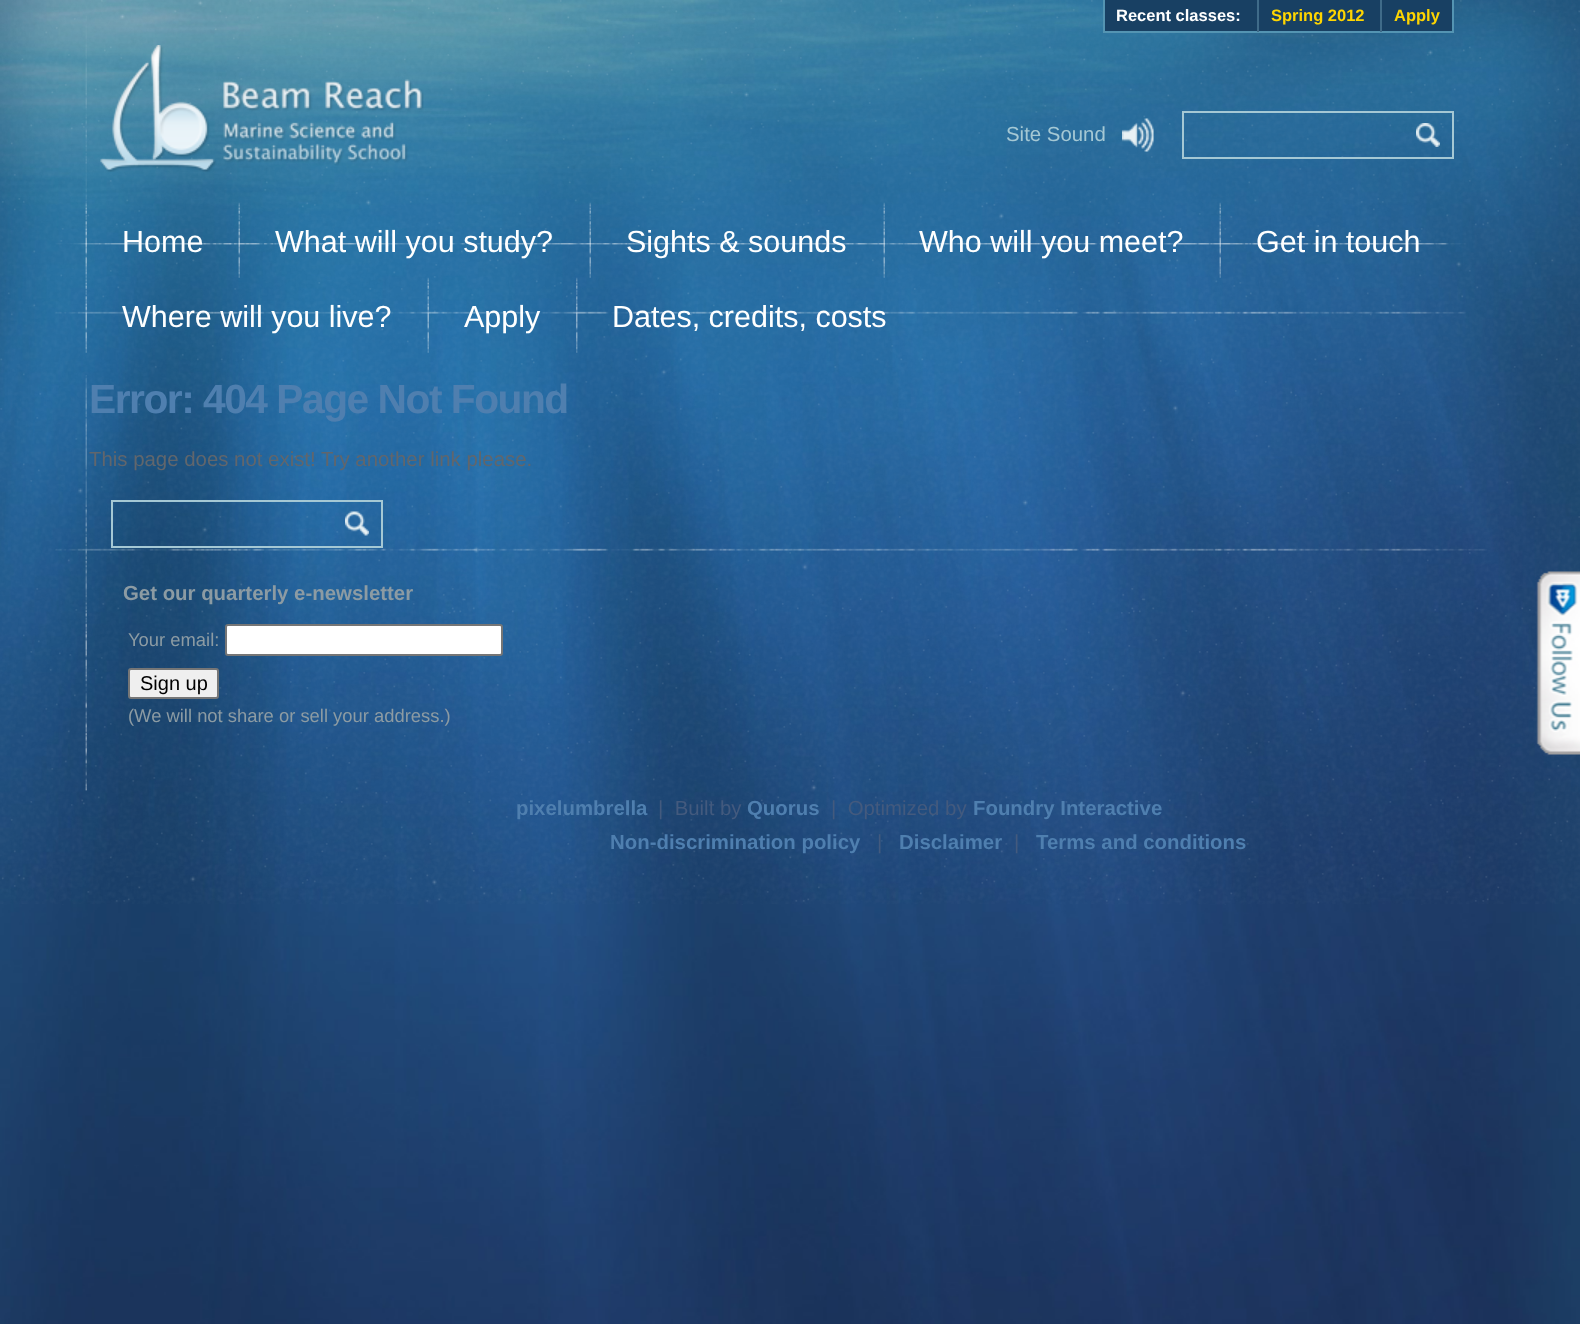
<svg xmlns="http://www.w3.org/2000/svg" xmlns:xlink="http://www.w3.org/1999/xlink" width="1580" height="1324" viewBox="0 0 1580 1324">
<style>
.cls-1{font:bold 16.5px Liberation Sans;fill:#ffffff}
.cls-2{font:bold 16.5px Liberation Sans;fill:#fed501}
.cls-3{font:20.4px Liberation Sans;fill:#a5c8d4}
.cls-4{font:30.5px Liberation Sans;fill:#ffffff}
.cls-5{font:bold 40.75px Liberation Sans;letter-spacing:-1.5px;fill:#4f7faf}
.cls-6{font:20.4px Liberation Sans;fill:#61666c}
.cls-7{font:bold 20.4px Liberation Sans;fill:#8c9ba3}
.cls-8{font:18.4px Liberation Sans;fill:#8c9ba3}
.cls-9{font:20px Liberation Sans;fill:#000000}
.cls-10{font:bold 20.4px Liberation Sans;fill:#4f7faf}
.cls-11{font:20.4px Liberation Sans;fill:#435a7e}
</style>
<rect width="100%" height="100%" fill="#ffffff"/>
<image xlink:href="image0.png" x="0" y="0" width="1580" height="1324"/>
<image xlink:href="image1.png" x="0" y="0" width="1580" height="904"/>
<image xlink:href="image2.png" x="0" y="0" width="1580" height="905"/>
<image xlink:href="image3.png" x="78" y="0" width="1384" height="885"/>
<rect fill="#184063" stroke="#5494b2" stroke-width="2" x="1104" y="-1" width="349" height="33"/>
<rect fill="#3f6b89" x="1257" y="0" width="2" height="32"/>
<rect fill="#3f6b89" x="1380" y="0" width="2" height="32"/>
<image xlink:href="image4.png" x="85" y="16" width="2" height="187"/>
<image xlink:href="image5.png" x="100" y="45" width="324" height="127"/>
<image xlink:href="image6.png" x="1122" y="118" width="32" height="34"/>
<image xlink:href="image7.png" x="1416" y="123" width="24" height="24"/>
<rect fill="none" stroke="#a5c8d4" stroke-width="2" x="1183" y="112" width="270" height="46"/>
<image xlink:href="image8.png" x="55" y="243" width="1411" height="71"/>
<image xlink:href="image9.png" x="85" y="202" width="2" height="76"/>
<image xlink:href="image10.png" x="238" y="202" width="2" height="76"/>
<image xlink:href="image11.png" x="589" y="202" width="2" height="76"/>
<image xlink:href="image12.png" x="883" y="202" width="2" height="76"/>
<image xlink:href="image13.png" x="1219" y="202" width="2" height="76"/>
<image xlink:href="image14.png" x="85" y="277" width="2" height="76"/>
<image xlink:href="image15.png" x="427" y="277" width="2" height="76"/>
<image xlink:href="image16.png" x="576" y="277" width="2" height="76"/>
<image xlink:href="image17.png" x="85" y="375" width="2" height="416"/>
<image xlink:href="image18.png" x="345" y="511" width="24" height="25"/>
<rect fill="none" stroke="#a5c8d4" stroke-width="2" x="112" y="501" width="270" height="46"/>
<image xlink:href="image19.png" x="55" y="548" width="1432" height="3"/>
<rect fill="#ffffff" stroke="#767676" stroke-width="2" x="226" y="625" width="276" height="30" rx="2"/>
<rect fill="#efefef" stroke="#767676" stroke-width="2" x="129" y="669" width="89" height="29" rx="2"/>
<image xlink:href="image20.png" x="1536" y="571" width="44" height="184"/>
<text class="cls-1" x="1116" y="21">Recent classes:</text>
<text class="cls-2" x="1271" y="21">Spring 2012</text>
<text class="cls-2" x="1394" y="21">Apply</text>
<text class="cls-3" x="1006" y="141">Site Sound</text>
<text class="cls-4" x="122" y="252">Home</text>
<text class="cls-4" x="275" y="252">What will you study?</text>
<text class="cls-4" x="626" y="252">Sights &amp; sounds</text>
<text class="cls-4" x="919" y="252">Who will you meet?</text>
<text class="cls-4" x="1256" y="252">Get in touch</text>
<text class="cls-4" x="122" y="327">Where will you live?</text>
<text class="cls-4" x="464" y="327">Apply</text>
<text class="cls-4" x="612" y="327">Dates, credits, costs</text>
<text class="cls-5" x="89" y="413">Error: 404 Page Not Found</text>
<text class="cls-6" x="89" y="466">This page does not exist! Try another link please.</text>
<text class="cls-7" x="123" y="600">Get our quarterly e-newsletter</text>
<text class="cls-8" x="128" y="646">Your email:</text>
<text class="cls-9" x="140" y="690">Sign up</text>
<text class="cls-8" x="128" y="722">(We will not share or sell your address.)</text>
<text class="cls-10" x="516" y="815">pixelumbrella</text>
<text class="cls-11" xml:space="preserve" x="658" y="815">|  Built by</text>
<text class="cls-10" x="747" y="815">Quorus</text>
<text class="cls-11" xml:space="preserve" x="831" y="815">|  Optimized by</text>
<text class="cls-10" x="973" y="815">Foundry Interactive</text>
<text class="cls-10" x="610" y="849">Non-discrimination policy</text>
<text class="cls-11" x="877" y="849">|</text>
<text class="cls-10" x="899" y="849">Disclaimer</text>
<text class="cls-11" x="1014" y="849">|</text>
<text class="cls-10" x="1036" y="849">Terms and conditions</text>
</svg>
